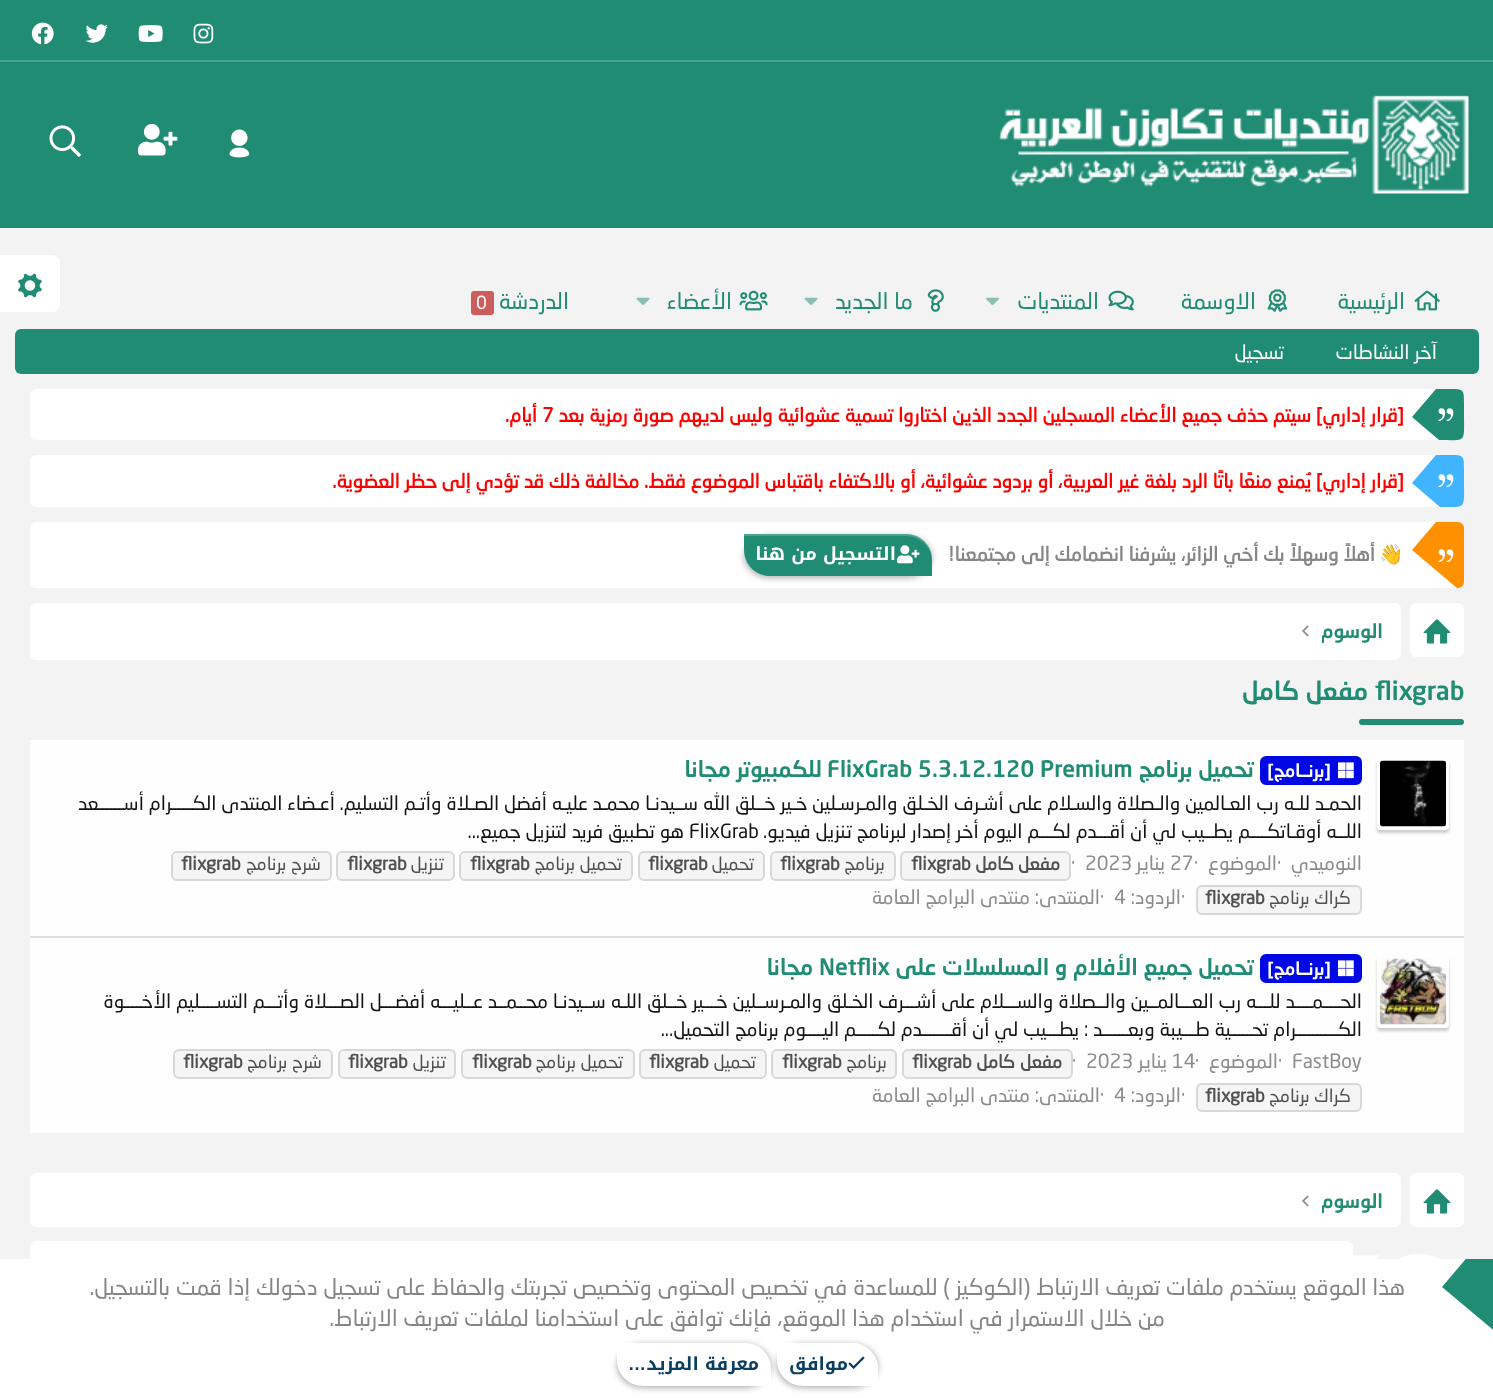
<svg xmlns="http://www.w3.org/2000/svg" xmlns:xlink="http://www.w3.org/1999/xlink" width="1493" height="1398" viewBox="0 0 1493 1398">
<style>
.cls-1{font:22.5px 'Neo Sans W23';direction:rtl;fill:#218c74}
.cls-2{font:18px 'Neo Sans W23';fill:#fefefe}
.cls-3{font:19.5px 'Neo Sans W23';direction:rtl;fill:#fefefe}
.cls-4{font:bold 19.5px 'Neo Sans W23';direction:rtl;fill:#ff0000}
.cls-5{font:bold 19.5px 'Neo Sans W23';fill:#ff0000}
.cls-6{font:bold 19.5px Noto Color Emoji;direction:rtl;fill:#868686}
.cls-7{font:bold 19.5px 'Neo Sans W23';direction:rtl;fill:#868686}
.cls-8{font:bold 18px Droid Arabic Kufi;direction:rtl;fill:#fefefe}
.cls-9{font:500 19.5px 'Neo Sans W23';direction:rtl;fill:#218c74}
.cls-10{font:500 25.5px 'Neo Sans W23';fill:#218c74}
.cls-11{font:500 25.5px 'Neo Sans W23';direction:rtl;fill:#218c74}
.cls-12{font:500 18px 'Neo Sans W23';direction:rtl;fill:#fefefe}
.cls-13{font:500 22.5px 'Neo Sans W23';direction:rtl;fill:#218c74}
.cls-14{font:500 22.5px 'Neo Sans W23';fill:#218c74}
.cls-15{font:19.5px 'Neo Sans W23';direction:rtl;fill:#141414}
.cls-16{font:19.5px 'Neo Sans W23';fill:#141414}
.cls-17{font:19.5px 'Neo Sans W23';direction:rtl;fill:#8c8c8c}
.cls-18{font:19.5px 'Neo Sans W23';fill:#8c8c8c}
.cls-19{font:bold 18px 'Neo Sans W23';direction:rtl;fill:#505050}
.cls-20{font:bold 18px 'Neo Sans W23';fill:#505050}
.cls-21{font:18px 'Neo Sans W23';direction:rtl;fill:#505050}
.cls-22{font:22.5px 'Neo Sans W23';direction:rtl;fill:#868686}
.cls-23{font:bold 18px Droid Arabic Kufi;direction:rtl;fill:#0a3f63}
.cls-24{font:bold 18px Liberation Sans;direction:rtl;fill:#0a3f63}
</style>
<defs>
<clipPath id="clip1"><path d="M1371 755H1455V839H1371ZM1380 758H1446C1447.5 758 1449 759.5 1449 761V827C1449 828.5 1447.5 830 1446 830H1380C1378.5 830 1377 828.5 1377 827V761C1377 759.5 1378.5 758 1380 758Z" clip-rule="evenodd"/></clipPath>
<clipPath id="clip2"><path d="M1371 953H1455V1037H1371ZM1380 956H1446C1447.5 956 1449 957.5 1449 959V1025C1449 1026.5 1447.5 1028 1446 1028H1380C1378.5 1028 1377 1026.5 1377 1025V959C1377 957.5 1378.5 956 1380 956Z" clip-rule="evenodd"/></clipPath>
<clipPath id="clip3"><rect x="0" y="1259" width="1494" height="139"/></clipPath>
<clipPath id="clip4"><rect x="1322" y="617" width="61" height="30"/></clipPath>
<clipPath id="clip5"><rect x="1322" y="1187" width="61" height="30"/></clipPath>
</defs>
<rect width="100%" height="100%" fill="#f3f3f3"/>
<rect fill="#218c74" x="0" y="0" width="1493" height="60"/>
<rect fill="#4da390" x="0" y="60" width="1493" height="2"/>
<image xlink:href="image0.png" x="193" y="23" width="21" height="21"/>
<image xlink:href="image1.png" x="138" y="25" width="25" height="17"/>
<image xlink:href="image2.png" x="85" y="24" width="23" height="19"/>
<image xlink:href="image3.png" x="31" y="22" width="23" height="23"/>
<rect fill="#218c74" x="0" y="62" width="1493" height="166"/>
<image xlink:href="image4.png" x="999" y="95" width="470" height="99"/>
<image xlink:href="image5.png" x="229" y="129" width="21" height="29"/>
<image xlink:href="image6.png" x="138" y="123" width="40" height="33"/>
<image xlink:href="image7.png" x="49" y="125" width="32" height="32"/>
<image xlink:href="image8.png" x="1414" y="290" width="26" height="21"/>
<image xlink:href="image9.png" x="1267" y="289" width="21" height="23"/>
<image xlink:href="image10.png" x="1108" y="290" width="26" height="21"/>
<image xlink:href="image11.png" x="986" y="297" width="13" height="9"/>
<image xlink:href="image12.png" x="927" y="289" width="17" height="23"/>
<image xlink:href="image13.png" x="804" y="297" width="14" height="9"/>
<image xlink:href="image14.png" x="739" y="290" width="29" height="21"/>
<image xlink:href="image13.png" x="636" y="297" width="14" height="9"/>
<rect fill="#cd5c5c" x="471" y="291" width="23" height="24" rx="3"/>
<rect fill="#218c74" x="15" y="329" width="1464" height="45" rx="6"/>
<rect fill="#ffffff" x="30" y="389" width="1434" height="51" rx="6"/>
<path fill="#218c74" d="M1439 440L1412 417L1436 389H1454C1464 389 1464 392 1464 402V414C1464 444 1467 440 1439 440Z"/>
<image xlink:href="image15.png" x="1438" y="408" width="16" height="14"/>
<rect fill="#ffffff" x="30" y="455" width="1434" height="52" rx="6"/>
<path fill="#41b4ff" d="M1440 507L1412 483L1436 455H1454C1464 455 1464 458 1464 468V481C1464 510 1467 507 1440 507Z"/>
<image xlink:href="image16.png" x="1438" y="474" width="16" height="14"/>
<rect fill="#ffffff" x="30" y="522" width="1434" height="66" rx="6"/>
<path fill="#ff9100" d="M1457 588L1412 550L1436 522H1458C1461 522 1464 525 1464 528V582C1464 585 1461 588 1458 588Z"/>
<rect fill="#000000" fill-opacity="0.3" filter="blur(3px)" x="744" y="536" width="188" height="42" rx="26"/>
<path fill="#218c74" d="M744 534H906C920.5 534 932 545.5 932 560V576H770C755.5 576 744 564.5 744 550Z"/>
<path fill="#ffffff" fill-opacity="0.2" d="M744 536H906C920 536 932 547 932 561V560C932 546 920 534 906 534H744Z"/>
<image xlink:href="image17.png" x="897" y="545" width="23" height="19"/>
<image xlink:href="image18.png" x="1438" y="549" width="16" height="14"/>
<rect fill="#ffffff" x="1410" y="603" width="54" height="54" rx="6"/>
<image xlink:href="image19.png" x="1423" y="619" width="28" height="25"/>
<rect fill="#ffffff" x="30" y="603" width="1371" height="57" rx="6"/>
<image xlink:href="image20.png" x="1302" y="625" width="7" height="12"/>
<rect fill="#218c74" x="1359" y="719" width="105" height="6" rx="3"/>
<rect fill="#fefefe" x="30" y="740" width="1434" height="393"/>
<g clip-path="url(#clip1)">
<rect fill="#000000" fill-opacity="0.2" filter="blur(1.5px)" x="1377" y="761" width="72" height="72" rx="3"/>
</g>
<image xlink:href="image21.png" x="1380" y="760" width="66" height="67"/>
<rect fill="#0008e3" stroke="#0008e3" stroke-width="2" x="1261" y="757" width="100" height="27" rx="5"/>
<image xlink:href="image22.png" x="1338" y="762" width="16" height="17"/>
<rect fill="#f5f5f5" stroke="#d8d8d8" stroke-width="2" x="901" y="852" width="169" height="28" rx="5"/>
<rect fill="#f5f5f5" stroke="#d8d8d8" stroke-width="2" x="771" y="852" width="124" height="28" rx="5"/>
<rect fill="#f5f5f5" stroke="#d8d8d8" stroke-width="2" x="639" y="852" width="125" height="28" rx="5"/>
<rect fill="#f5f5f5" stroke="#d8d8d8" stroke-width="2" x="460" y="852" width="172" height="28" rx="5"/>
<rect fill="#f5f5f5" stroke="#d8d8d8" stroke-width="2" x="337" y="852" width="117" height="28" rx="5"/>
<rect fill="#f5f5f5" stroke="#d8d8d8" stroke-width="2" x="172" y="852" width="159" height="28" rx="5"/>
<rect fill="#f5f5f5" stroke="#d8d8d8" stroke-width="2" x="1197" y="886" width="164" height="28" rx="5"/>
<rect fill="#dfdfdf" x="30" y="936" width="1434" height="2"/>
<g clip-path="url(#clip2)">
<rect fill="#000000" fill-opacity="0.2" filter="blur(1.5px)" x="1377" y="959" width="72" height="72" rx="3"/>
</g>
<image xlink:href="image23.png" x="1380" y="958" width="66" height="67"/>
<rect fill="#0008e3" stroke="#0008e3" stroke-width="2" x="1261" y="955" width="100" height="27" rx="5"/>
<image xlink:href="image22.png" x="1338" y="960" width="16" height="17"/>
<rect fill="#f5f5f5" stroke="#d8d8d8" stroke-width="2" x="903" y="1050" width="169" height="28" rx="5"/>
<rect fill="#f5f5f5" stroke="#d8d8d8" stroke-width="2" x="772" y="1050" width="124" height="28" rx="5"/>
<rect fill="#f5f5f5" stroke="#d8d8d8" stroke-width="2" x="640" y="1050" width="126" height="28" rx="5"/>
<rect fill="#f5f5f5" stroke="#d8d8d8" stroke-width="2" x="462" y="1050" width="172" height="28" rx="5"/>
<rect fill="#f5f5f5" stroke="#d8d8d8" stroke-width="2" x="339" y="1050" width="116" height="28" rx="5"/>
<rect fill="#f5f5f5" stroke="#d8d8d8" stroke-width="2" x="174" y="1050" width="158" height="28" rx="5"/>
<rect fill="#f5f5f5" stroke="#d8d8d8" stroke-width="2" x="1197" y="1084" width="164" height="27" rx="5"/>
<rect fill="#ffffff" x="1410" y="1173" width="54" height="54" rx="6"/>
<image xlink:href="image19.png" x="1423" y="1189" width="28" height="25"/>
<rect fill="#ffffff" x="30" y="1173" width="1371" height="54" rx="6"/>
<image xlink:href="image20.png" x="1302" y="1195" width="7" height="12"/>
<circle fill="#ffffff" cx="1419" cy="1299" r="45"/>
<rect fill="#ffffff" x="30" y="1241" width="1323" height="112" rx="6"/>
<path fill="#ffffff" d="M1353 1255.5H1380L1353 1282.5Z"/>
<path fill="#ffffff" d="M0 255H52C56.5 255 60 258.5 60 263V304C60 308.5 56.5 312 52 312H0Z"/>
<image xlink:href="image24.png" x="18" y="273" width="24" height="25"/>
<rect fill="#ffffff" x="0" y="1259" width="1493" height="139"/>
<g clip-path="url(#clip3)">
<path fill="#218c74" d="M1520 1195L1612 1272L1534 1364L1442 1287Z"/>
</g>
<rect fill="#000000" fill-opacity="0.3" filter="blur(3px)" x="777" y="1344" width="101" height="44" rx="26"/>
<path fill="#ffffff" d="M777 1343H852C866.5 1343 878 1354.5 878 1369V1386H803C788.5 1386 777 1374.5 777 1360Z"/>
<path fill="#ffffff" d="M777 1344H852C866 1344 878 1355 878 1370V1369C878 1355 866 1343 852 1343H777Z"/>
<image xlink:href="image25.png" x="848" y="1356" width="17" height="13"/>
<rect fill="#000000" fill-opacity="0.3" filter="blur(3px)" x="617" y="1344" width="154" height="44" rx="26"/>
<path fill="#ffffff" d="M617 1343H745C759.5 1343 771 1354.5 771 1369V1386H643C628.5 1386 617 1374.5 617 1360Z"/>
<text class="cls-1" x="1405" y="309">الرئيسية</text>
<text class="cls-1" x="1256" y="309">اﻻوسمة</text>
<text class="cls-1" x="1099" y="309">المنتديات</text>
<text class="cls-1" x="913" y="309">ما الجديد</text>
<text class="cls-1" x="732" y="309">الأعضاء</text>
<text class="cls-1" x="569" y="309">الدردشة</text>
<text class="cls-2" x="476" y="309">0</text>
<text class="cls-3" x="1437" y="359">آخر النشاطات</text>
<text class="cls-3" x="1284" y="359">تسجيل</text>
<text class="cls-4" x="1404" y="422">[قرار إداري] سيتم حذف جميع الأعضاء المسجلين الجدد الذين اختاروا تسمية عشوائية وليس لديهم صورة رمزية بعد</text>
<text class="cls-5" x="542" y="422">7</text>
<text class="cls-4" x="537" y="422">أيام.</text>
<text class="cls-4" x="1404" y="488">[قرار إداري] يُمنع منعًا باتًا الرد بلغة غير العربية، أو بردود عشوائية، أو بالاكتفاء باقتباس الموضوع فقط. مخالفة ذلك قد تؤدي إلى حظر العضوية.</text>
<text class="cls-6" x="1404" y="561">👋</text>
<text class="cls-7" x="1375" y="561">أهلاً وسهلاً بك أخي الزائر، يشرفنا انضمامك إلى مجتمعنا!</text>
<text class="cls-8" x="896" y="560">التسجيل من هنا</text>
<g clip-path="url(#clip4)">
<text class="cls-9" x="1383" y="638">الوسوم</text>
</g>
<text class="cls-10" x="1375" y="700">flixgrab</text>
<text class="cls-11" x="1368" y="700">مفعل كامل</text>
<text class="cls-12" x="1331" y="777">[برنــامج]</text>
<text class="cls-13" x="1254" y="777">تحميل برنامج</text>
<text class="cls-14" x="827" y="777">FlixGrab 5.3.12.120 Premium</text>
<text class="cls-13" x="822" y="777">للكمبيوتر مجانا</text>
<text class="cls-15" x="1362" y="810">الحمـد للـه رب العـالمين والـصلاة والسـلام على أشـرف الخـلق والمـرسـلين خـير خــلق الله ســيدنـا محمـد عليـه أفضل الصـلاة وأتـم التسليم.</text>
<text class="cls-15" x="335" y="810">أعـضاء المنتدى الكـــــرام أســــــعد</text>
<text class="cls-15" x="1362" y="838">اللــه أوقـاتكــــم</text>
<text class="cls-15" x="1233" y="838">يطــيب لي أن أقـــدم لكـــم اليوم أخر إصدار لبرنامج تنزيل فيديو.</text>
<text class="cls-16" x="689" y="838">FlixGrab</text>
<text class="cls-15" x="684" y="838">هو تطبيق فريد لتنزيل جميع...</text>
<text class="cls-17" x="1362" y="870">النوميدي</text>
<text class="cls-17" x="1277" y="870">الموضوع</text>
<text class="cls-18" x="1170" y="870">27</text>
<text class="cls-17" x="1165" y="870">يناير</text>
<text class="cls-18" x="1085" y="870">2023</text>
<text class="cls-18" x="1071" y="870">·</text>
<text class="cls-19" x="1060" y="870">مفعل</text>
<text class="cls-19" x="1014" y="870">كامل</text>
<text class="cls-20" x="911" y="870">flixgrab</text>
<text class="cls-21" x="885" y="870">برنامج</text>
<text class="cls-20" x="780" y="870">flixgrab</text>
<text class="cls-21" x="754" y="870">تحميل</text>
<text class="cls-20" x="648" y="870">flixgrab</text>
<text class="cls-21" x="622" y="870">تحميل برنامج</text>
<text class="cls-20" x="470" y="870">flixgrab</text>
<text class="cls-21" x="444" y="870">تنزيل</text>
<text class="cls-20" x="347" y="870">flixgrab</text>
<text class="cls-21" x="321" y="870">شرح برنامج</text>
<text class="cls-20" x="181" y="870">flixgrab</text>
<text class="cls-21" x="1351" y="904">كراك برنامج</text>
<text class="cls-20" x="1205" y="904">flixgrab</text>
<text class="cls-18" x="1277" y="870">·</text>
<text class="cls-18" x="1194" y="870">·</text>
<text class="cls-18" x="1181" y="904">·</text>
<text class="cls-17" x="1181" y="904">الردود:</text>
<text class="cls-18" x="1114" y="904">4</text>
<text class="cls-18" x="1100" y="904">·</text>
<text class="cls-17" x="1100" y="904">المنتدى:</text>
<text class="cls-17" x="1030" y="904">منتدى البرامج العامة</text>
<text class="cls-12" x="1331" y="975">[برنــامج]</text>
<text class="cls-13" x="1254" y="975">تحميل جميع الأفلام و المسلسلات على</text>
<text class="cls-14" x="819" y="975">Netflix</text>
<text class="cls-13" x="813" y="975">مجانا</text>
<text class="cls-15"><tspan x="1362" y="1008">الحــــمــــد للـــه رب العـــالمــين والــصلاة والســـلام على أشـــرف الخـلق والمـرســلين خـــير خــلق اللـه ســيدنـا محــمــد عــليـــه أفضـــل الصـــلاة وأتـــم التســــليم الأخــــوة</tspan><tspan x="1362" y="1036">الكــــــــــرام تحـــــية طـــيبة وبعــــــد : يطـــيب لي أن أقـــــــدم لكـــــم اليــــوم</tspan></text>
<text class="cls-15" x="779" y="1036">برنامج التحميل...</text>
<text class="cls-18" x="1292" y="1068">FastBoy</text>
<text class="cls-17" x="1278" y="1068">الموضوع</text>
<text class="cls-18" x="1172" y="1068">14</text>
<text class="cls-17" x="1167" y="1068">يناير</text>
<text class="cls-18" x="1086" y="1068">2023</text>
<text class="cls-18" x="1072" y="1068">·</text>
<text class="cls-19" x="1062" y="1068">مفعل</text>
<text class="cls-19" x="1015" y="1068">كامل</text>
<text class="cls-20" x="912" y="1068">flixgrab</text>
<text class="cls-21" x="887" y="1068">برنامج</text>
<text class="cls-20" x="782" y="1068">flixgrab</text>
<text class="cls-21" x="756" y="1068">تحميل</text>
<text class="cls-20" x="649" y="1068">flixgrab</text>
<text class="cls-21" x="623" y="1068">تحميل برنامج</text>
<text class="cls-20" x="472" y="1068">flixgrab</text>
<text class="cls-21" x="446" y="1068">تنزيل</text>
<text class="cls-20" x="348" y="1068">flixgrab</text>
<text class="cls-21" x="322" y="1068">شرح برنامج</text>
<text class="cls-20" x="183" y="1068">flixgrab</text>
<text class="cls-21" x="1351" y="1102">كراك برنامج</text>
<text class="cls-20" x="1205" y="1102">flixgrab</text>
<text class="cls-18" x="1278" y="1068">·</text>
<text class="cls-18" x="1195" y="1068">·</text>
<text class="cls-18" x="1181" y="1102">·</text>
<text class="cls-17" x="1181" y="1102">الردود:</text>
<text class="cls-18" x="1114" y="1102">4</text>
<text class="cls-18" x="1100" y="1102">·</text>
<text class="cls-17" x="1100" y="1102">المنتدى:</text>
<text class="cls-17" x="1030" y="1102">منتدى البرامج العامة</text>
<g clip-path="url(#clip5)">
<text class="cls-9" x="1383" y="1208">الوسوم</text>
</g>
<text class="cls-22" x="1405" y="1295">هذا الموقع يستخدم ملفات تعريف الارتباط (الكوكيز ) للمساعدة في تخصيص المحتوى وتخصيص تجربتك والحفاظ على تسجيل دخولك إذا قمت بالتسجيل.</text>
<text class="cls-22" x="1165" y="1326">من خلال الاستمرار في استخدام هذا الموقع، فإنك توافق على استخدامنا لملفات تعريف الارتباط.</text>
<text class="cls-23" x="848" y="1370">موافق</text>
<text class="cls-23" x="759" y="1370">معرفة المزيد</text>
<text class="cls-24" x="646" y="1370">…</text>
</svg>
